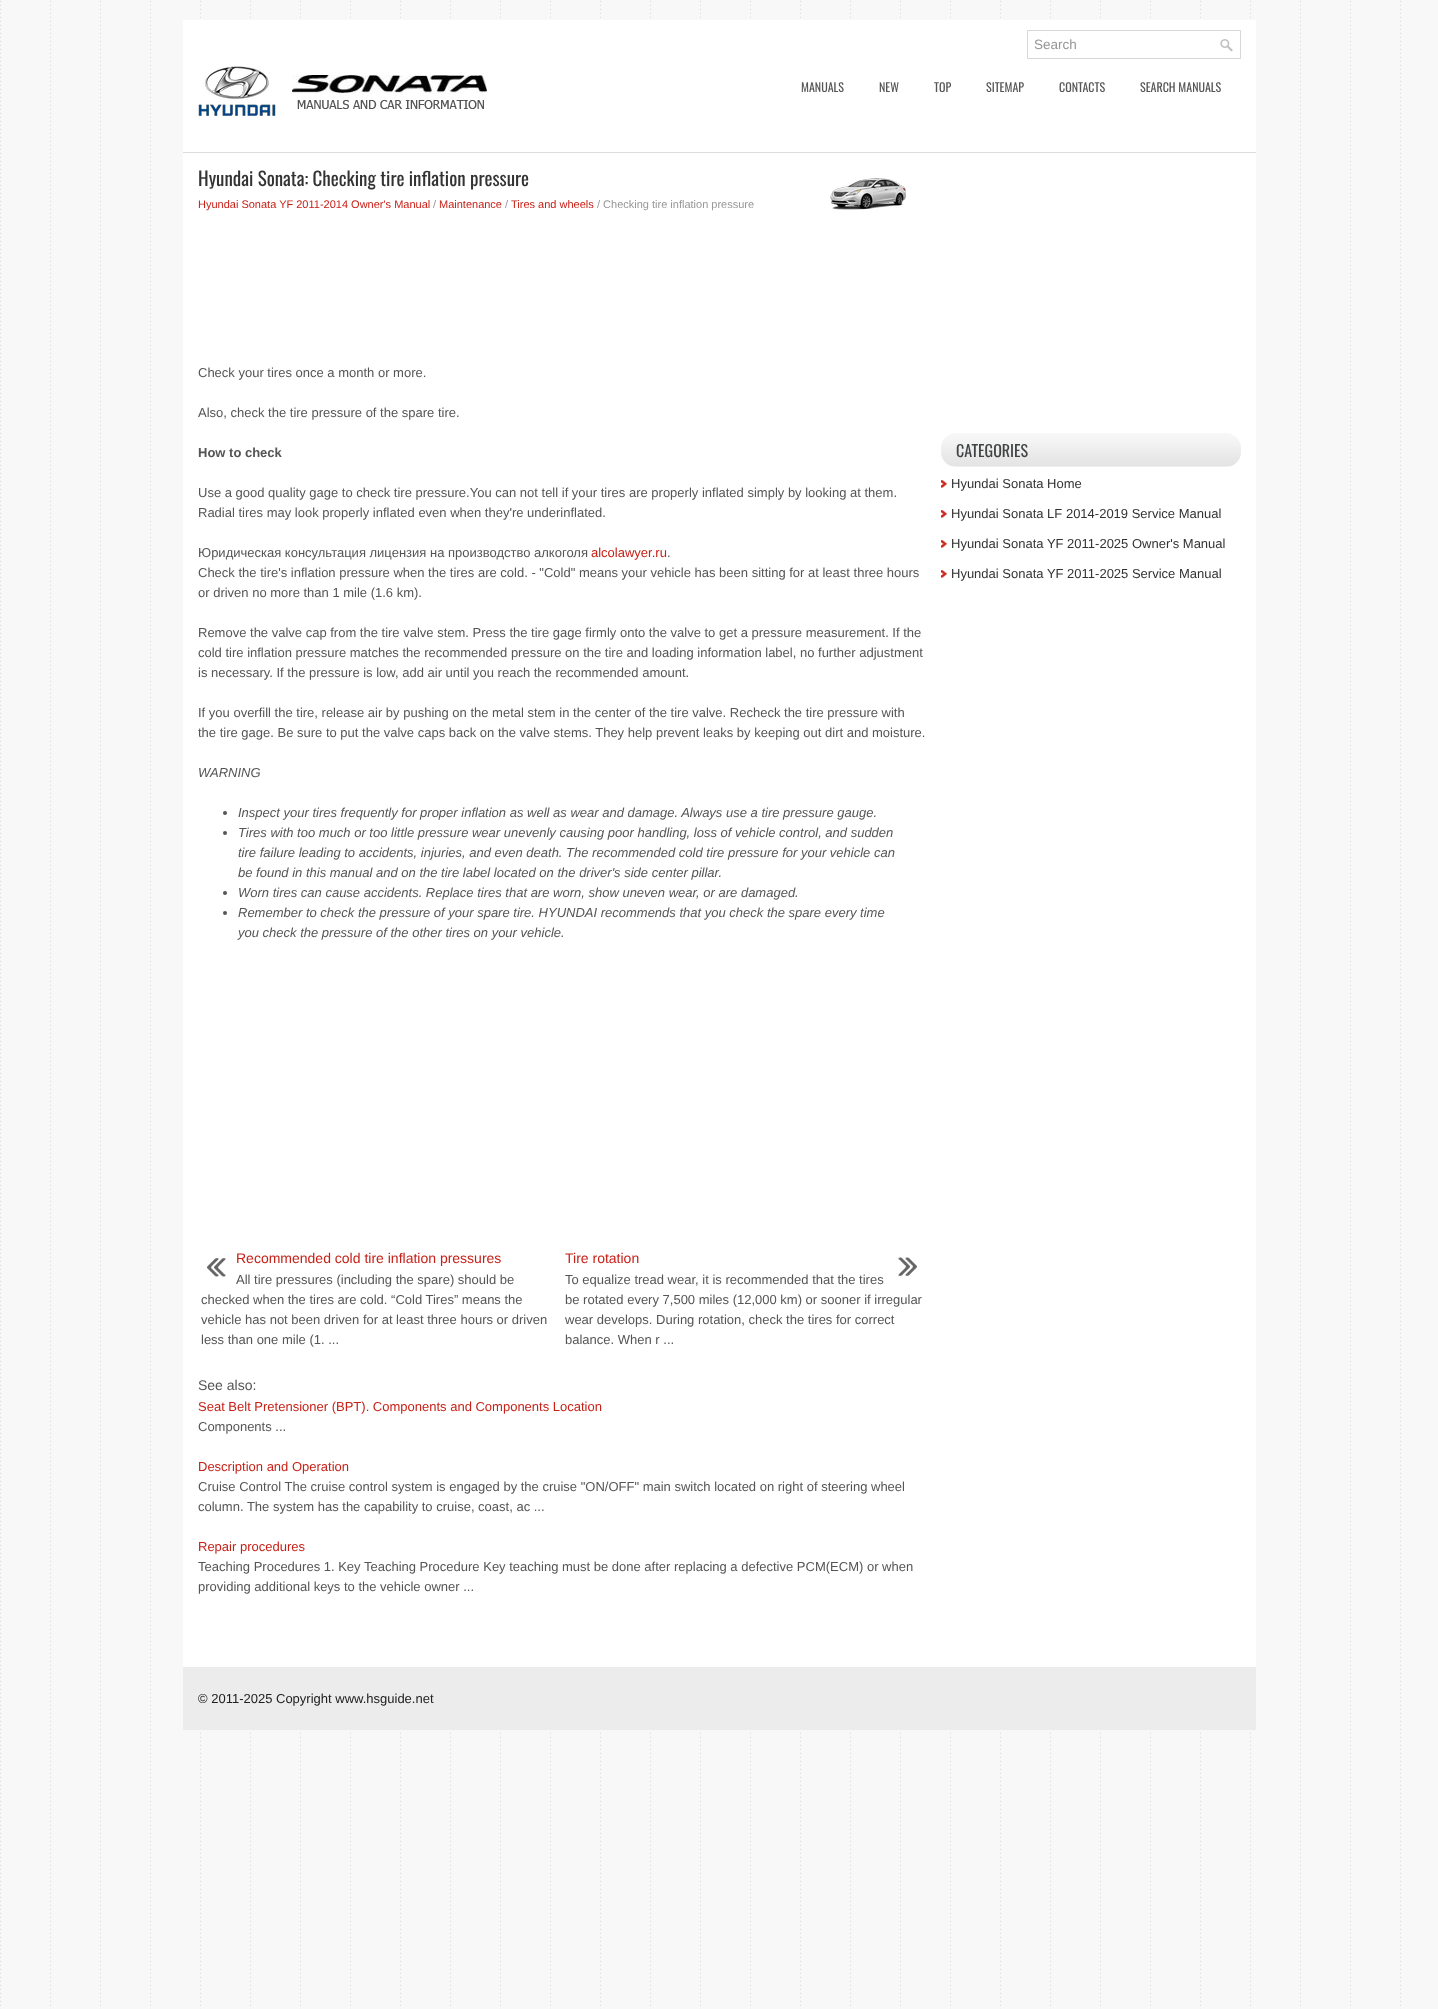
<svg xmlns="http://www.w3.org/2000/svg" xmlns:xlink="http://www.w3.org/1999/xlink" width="1438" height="2009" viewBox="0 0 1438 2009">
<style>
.cls-1{font:13.5px Liberation Sans;fill:#979797}
.cls-2{font:12px Oswald;fill:#555555}
.cls-3{font:19px Oswald;fill:#333333}
.cls-4{font:11px Liberation Sans;fill:#c72017}
.cls-5{font:11px Liberation Sans;fill:#979797}
.cls-6{font:13px Liberation Sans;fill:#555555}
.cls-7{font:bold 13px Liberation Sans;fill:#555555}
.cls-8{font:13px Liberation Sans;fill:#c72017}
.cls-9{font:italic 13px Liberation Sans;fill:#555555}
.cls-10{font:14px Liberation Sans;fill:#c72017}
.cls-11{font:14px Liberation Sans;fill:#555555}
.cls-12{font:16px Oswald;fill:#414445}
.cls-13{font:13px Liberation Sans;fill:#333333}
.cls-14{font:13px Liberation Sans;fill:#202020}
</style>
<rect width="100%" height="100%" fill="#ffffff"/>
<image xlink:href="image0.png" x="0" y="0" width="1438" height="2009"/>
<rect fill="#ffffff" x="183" y="20" width="1073" height="132"/>
<rect fill="none" stroke="#d8d8d8" x="1027.5" y="30.5" width="213" height="28"/>
<image xlink:href="image1.png" x="1220" y="39" width="13" height="13"/>
<image xlink:href="image2.png" x="198" y="66" width="289" height="50"/>
<rect fill="#dcdcdc" x="183" y="152" width="1073" height="1"/>
<rect fill="#ffffff" x="183" y="153" width="1073" height="1514"/>
<image xlink:href="image3.png" x="830" y="178" width="76" height="32"/>
<circle fill="#555555" cx="225" cy="813" r="2"/>
<circle fill="#555555" cx="225" cy="833" r="2"/>
<circle fill="#555555" cx="225" cy="893" r="2"/>
<circle fill="#555555" cx="225" cy="913" r="2"/>
<image xlink:href="image4.png" x="207" y="1258" width="19" height="19"/>
<image xlink:href="image5.png" x="898" y="1257" width="19" height="19"/>
<image xlink:href="image6.png" x="941" y="433" width="300" height="34"/>
<image xlink:href="image7.png" x="941" y="480" width="6" height="8"/>
<image xlink:href="image7.png" x="941" y="510" width="6" height="8"/>
<image xlink:href="image7.png" x="941" y="540" width="6" height="8"/>
<image xlink:href="image7.png" x="941" y="570" width="6" height="8"/>
<rect fill="#ececec" x="183" y="1667" width="1073" height="63"/>
<text class="cls-1" x="1034" y="49">Search</text>
<text class="cls-2" x="801" y="92">MANUALS</text>
<text class="cls-2" x="879" y="92">NEW</text>
<text class="cls-2" x="934" y="92">TOP</text>
<text class="cls-2" x="986" y="92">SITEMAP</text>
<text class="cls-2" x="1059" y="92">CONTACTS</text>
<text class="cls-2" x="1140" y="92">SEARCH MANUALS</text>
<text class="cls-3" x="198" y="186">Hyundai Sonata: Checking tire inflation pressure</text>
<text class="cls-4" x="198" y="208">Hyundai Sonata YF 2011-2014 Owner's Manual</text>
<text class="cls-5" x="433" y="208">/</text>
<text class="cls-4" x="439" y="208">Maintenance</text>
<text class="cls-5" x="505" y="208">/</text>
<text class="cls-4" x="511" y="208">Tires and wheels</text>
<text class="cls-5" x="597" y="208">/ Checking tire inflation pressure</text>
<text class="cls-6" x="198" y="377">Check your tires once a month or more.</text>
<text class="cls-6" x="198" y="417">Also, check the tire pressure of the spare tire.</text>
<text class="cls-7" x="198" y="457">How to check</text>
<text class="cls-6"><tspan x="198" y="497">Use a good quality gage to check tire pressure.You can not tell if your tires are properly inflated simply by looking at them.</tspan><tspan x="198" y="517">Radial tires may look properly inflated even when they're underinflated.</tspan></text>
<text class="cls-6" x="198" y="557">Юридическая консультация лицензия на производство алкоголя</text>
<text class="cls-8" x="591" y="557">alcolawyer.ru</text>
<text class="cls-6" x="667" y="557">.</text>
<text class="cls-6"><tspan x="198" y="577">Check the tire's inflation pressure when the tires are cold. - "Cold" means your vehicle has been sitting for at least three hours</tspan><tspan x="198" y="597">or driven no more than 1 mile (1.6 km).</tspan></text>
<text class="cls-6"><tspan x="198" y="637">Remove the valve cap from the tire valve stem. Press the tire gage firmly onto the valve to get a pressure measurement. If the</tspan><tspan x="198" y="657">cold tire inflation pressure matches the recommended pressure on the tire and loading information label, no further adjustment</tspan><tspan x="198" y="677">is necessary. If the pressure is low, add air until you reach the recommended amount.</tspan></text>
<text class="cls-6"><tspan x="198" y="717">If you overfill the tire, release air by pushing on the metal stem in the center of the tire valve. Recheck the tire pressure with</tspan><tspan x="198" y="737">the tire gage. Be sure to put the valve caps back on the valve stems. They help prevent leaks by keeping out dirt and moisture.</tspan></text>
<text class="cls-9" x="198" y="777">WARNING</text>
<text class="cls-9"><tspan x="238" y="817">Inspect your tires frequently for proper inflation as well as wear and damage. Always use a tire pressure gauge.</tspan><tspan x="238" y="837">Tires with too much or too little pressure wear unevenly causing poor handling, loss of vehicle control, and sudden</tspan><tspan x="238" y="857">tire failure leading to accidents, injuries, and even death. The recommended cold tire pressure for your vehicle can</tspan><tspan x="238" y="877">be found in this manual and on the tire label located on the driver's side center pillar.</tspan><tspan x="238" y="897">Worn tires can cause accidents. Replace tires that are worn, show uneven wear, or are damaged.</tspan><tspan x="238" y="917">Remember to check the pressure of your spare tire. HYUNDAI recommends that you check the spare every time</tspan><tspan x="238" y="937">you check the pressure of the other tires on your vehicle.</tspan></text>
<text class="cls-10" x="236" y="1263">Recommended cold tire inflation pressures</text>
<text class="cls-6" x="236" y="1284">All tire pressures (including the spare) should be</text>
<text class="cls-6"><tspan x="201" y="1304">checked when the tires are cold. “Cold Tires” means the</tspan><tspan x="201" y="1324">vehicle has not been driven for at least three hours or driven</tspan><tspan x="201" y="1344">less than one mile (1. ...</tspan></text>
<text class="cls-10" x="565" y="1263">Tire rotation</text>
<text class="cls-6"><tspan x="565" y="1284">To equalize tread wear, it is recommended that the tires</tspan><tspan x="565" y="1304">be rotated every 7,500 miles (12,000 km) or sooner if irregular</tspan><tspan x="565" y="1324">wear develops. During rotation, check the tires for correct</tspan><tspan x="565" y="1344">balance. When r ...</tspan></text>
<text class="cls-11" x="198" y="1390">See also:</text>
<text class="cls-8" x="198" y="1411">Seat Belt Pretensioner (BPT). Components and Components Location</text>
<text class="cls-6" x="198" y="1431">Components ...</text>
<text class="cls-8" x="198" y="1471">Description and Operation</text>
<text class="cls-6"><tspan x="198" y="1491">Cruise Control The cruise control system is engaged by the cruise "ON/OFF" main switch located on right of steering wheel</tspan><tspan x="198" y="1511">column. The system has the capability to cruise, coast, ac ...</tspan></text>
<text class="cls-8" x="198" y="1551">Repair procedures</text>
<text class="cls-6"><tspan x="198" y="1571">Teaching Procedures 1. Key Teaching Procedure Key teaching must be done after replacing a defective PCM(ECM) or when</tspan><tspan x="198" y="1591">providing additional keys to the vehicle owner ...</tspan></text>
<text class="cls-12" x="956" y="457">CATEGORIES</text>
<text class="cls-13" x="951" y="488">Hyundai Sonata Home</text>
<text class="cls-13" x="951" y="518">Hyundai Sonata LF 2014-2019 Service Manual</text>
<text class="cls-13" x="951" y="548">Hyundai Sonata YF 2011-2025 Owner's Manual</text>
<text class="cls-13" x="951" y="578">Hyundai Sonata YF 2011-2025 Service Manual</text>
<text class="cls-14" x="198" y="1703">© 2011-2025 Copyright www.hsguide.net</text>
</svg>
